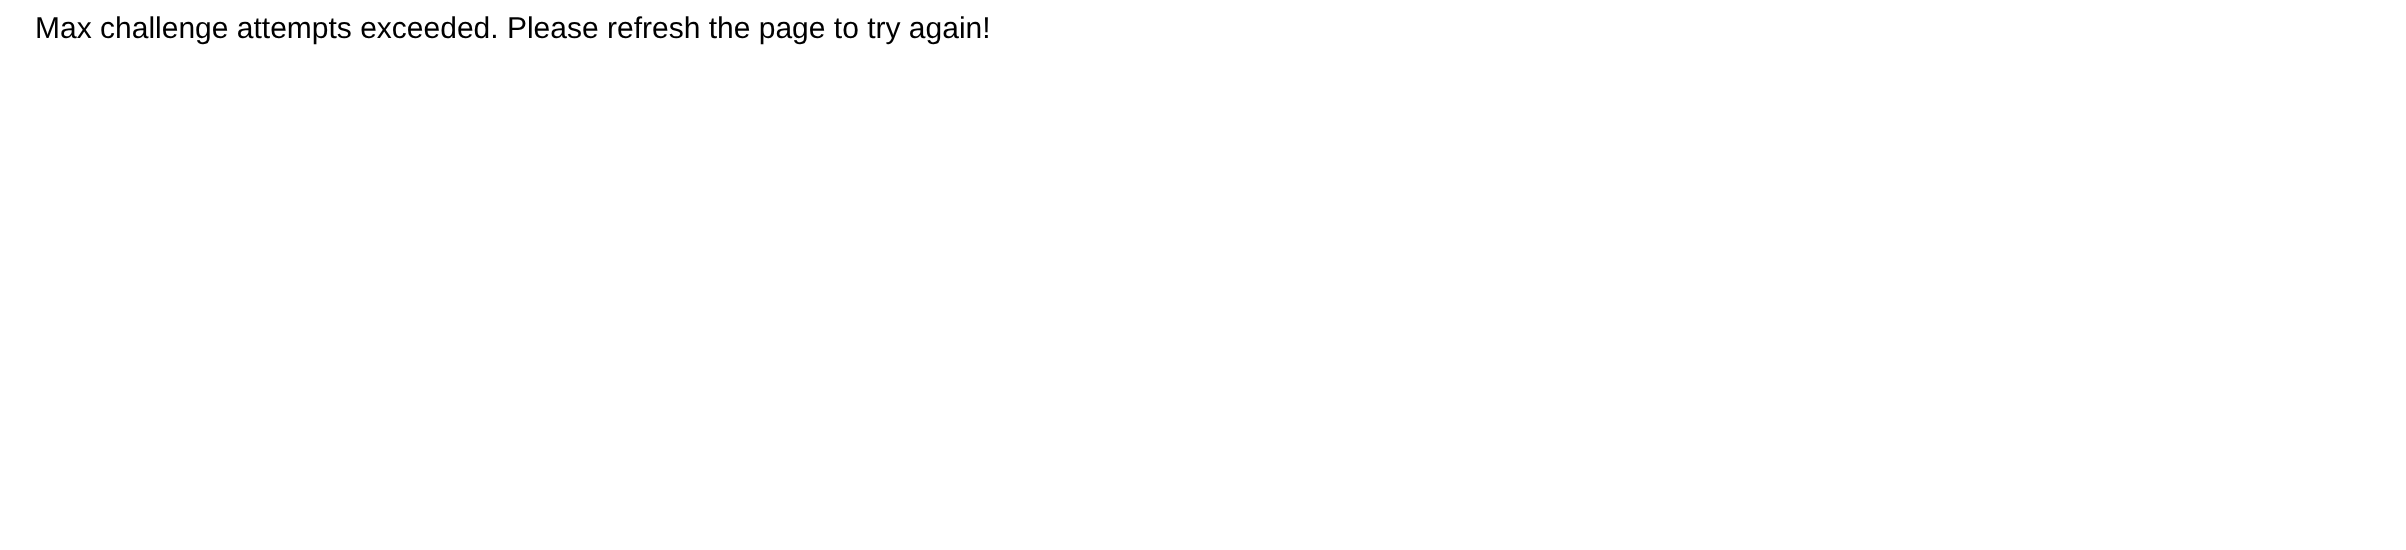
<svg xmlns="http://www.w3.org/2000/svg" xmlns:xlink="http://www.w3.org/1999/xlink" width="2406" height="550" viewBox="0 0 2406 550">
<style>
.cls-1{font:30px Liberation Sans;fill:#000000}
</style>
<rect width="100%" height="100%" fill="#ffffff"/>
<text class="cls-1" x="35" y="38">Max challenge attempts exceeded. Please refresh the page to try again!</text>
</svg>
